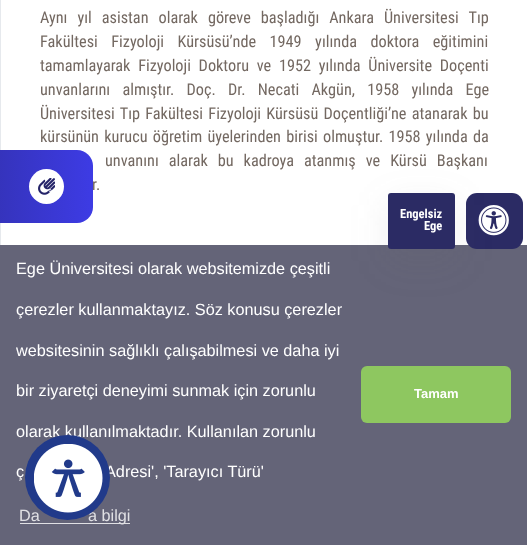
<svg xmlns="http://www.w3.org/2000/svg" xmlns:xlink="http://www.w3.org/1999/xlink" width="527" height="545" viewBox="0 0 527 545">
<style>
.cls-1{font:16.25px Roboto Condensed;fill:#736861}
.cls-2{font:bold 12.5px Roboto Condensed;fill:#ffffff}
.cls-3{font:16.25px Liberation Sans;fill:#ffffff}
.cls-4{font:16.25px Liberation Sans;fill:#e0e0e4}
.cls-5{font:bold 13px Liberation Sans;fill:#ffffff}
</style>
<defs>
<linearGradient id="g1" gradientUnits="userSpaceOnUse" x1="-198" y1="184" x2="93" y2="188"><stop offset="0" stop-color="#242368"/><stop offset="0.99" stop-color="#3d3be3"/></linearGradient>
</defs>
<rect width="100%" height="100%" fill="#ffffff"/>
<rect fill="none" stroke="#e6e9ed" x="0.5" y="-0.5" width="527" height="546"/>
<rect fill="#646478" x="0" y="245" width="527" height="300"/>
<rect fill="#2b2b64" x="466" y="193" width="57" height="56" rx="11"/>
<image xlink:href="image1.png" x="478" y="205" width="31" height="31"/>
<rect fill="#666666" fill-opacity="0.1" filter="blur(19px)" x="388" y="205" width="67" height="56" rx="3"/>
<rect fill="#2b2b64" x="388" y="193" width="67" height="56" rx="3"/>
<rect fill="#e0e0e4" x="20" y="523" width="110" height="1"/>
<rect fill="#8ec760" x="361" y="366" width="150" height="57" rx="6"/>
<text class="cls-1"><tspan x="40" y="23" word-spacing="6.25">Aynı yıl asistan olarak göreve başladığı Ankara Üniversitesi Tıp</tspan><tspan x="40" y="47" word-spacing="9.75">Fakültesi Fizyoloji Kürsüsü’nde 1949 yılında doktora eğitimini</tspan><tspan x="40" y="71" word-spacing="4">tamamlayarak Fizyoloji Doktoru ve 1952 yılında Üniversite Doçenti</tspan><tspan x="40" y="95" word-spacing="8.5">unvanlarını almıştır. Doç. Dr. Necati Akgün, 1958 yılında Ege</tspan><tspan x="40" y="119" word-spacing="1.5">Üniversitesi Tıp Fakültesi Fizyoloji Kürsüsü Doçentliği’ne atanarak bu</tspan><tspan x="40" y="142" word-spacing="1.5">kürsünün kurucu öğretim üyelerinden birisi olmuştur. 1958 yılında da</tspan></text>
<text class="cls-1" x="105" y="166" word-spacing="6.25">unvanını alarak bu kadroya atanmış ve Kürsü Başkanı</text>
<text class="cls-1" x="92" y="190">r.</text>
<rect fill="url(#g1)" x="-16" y="150" width="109" height="73" rx="16"/>
<circle fill="#ffffff" cx="46.5" cy="186.5" r="17.5"/>
<image xlink:href="image0.png" x="38" y="178" width="17" height="17"/>
<text class="cls-2" x="400" y="218">Engelsiz</text>
<text class="cls-2" x="424" y="230">Ege</text>
<text class="cls-3" x="16" y="274">Ege Üniversitesi olarak websitemizde çeşitli</text>
<text class="cls-3" x="16" y="315">çerezler kullanmaktayız. Söz konusu çerezler</text>
<text class="cls-3" x="16" y="356">websitesinin sağlıklı çalışabilmesi ve daha iyi</text>
<text class="cls-3" x="16" y="396">bir ziyaretçi deneyimi sunmak için zorunlu</text>
<text class="cls-3" x="16" y="437">olarak kullanılmaktadır. Kullanılan zorunlu</text>
<text class="cls-3" x="16" y="477">ç</text>
<text class="cls-3" x="105" y="477">Adresi', 'Tarayıcı Türü'</text>
<text class="cls-4" x="19" y="521">Da</text>
<text class="cls-4" x="88" y="521">a bilgi</text>
<text class="cls-5" x="414" y="398">Tamam</text>
<circle fill="#213a8a" cx="67.5" cy="477.5" r="42.5"/>
<image xlink:href="image2.png" x="34" y="444" width="69" height="69"/>
</svg>
